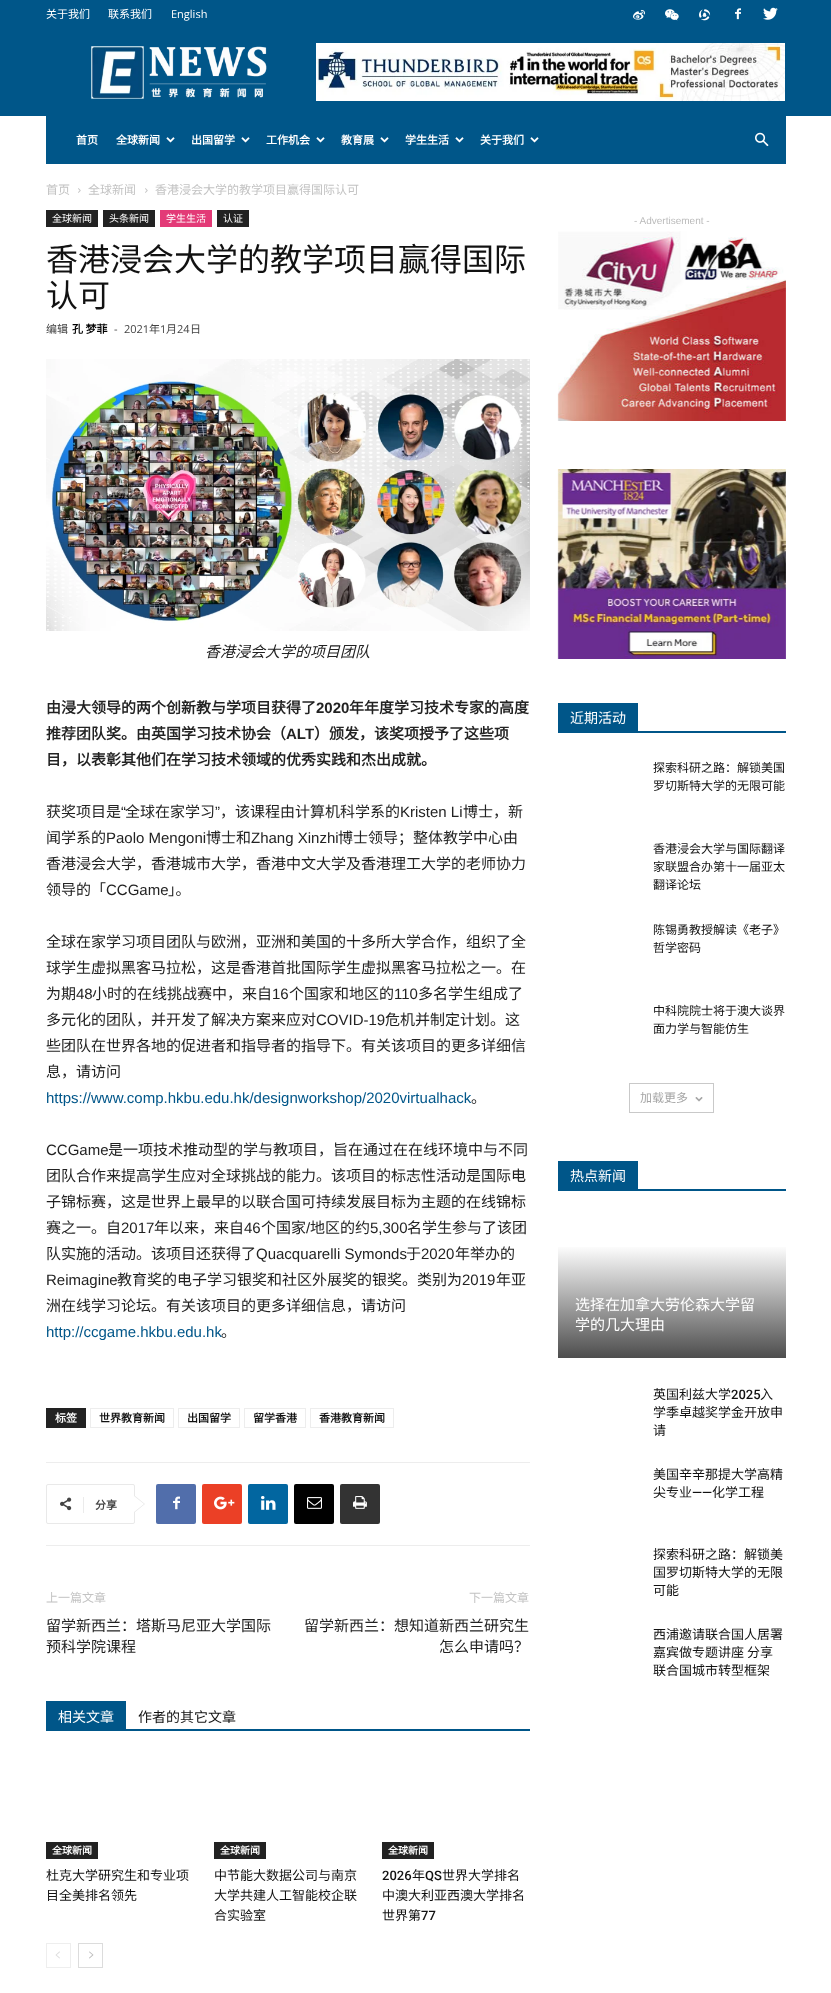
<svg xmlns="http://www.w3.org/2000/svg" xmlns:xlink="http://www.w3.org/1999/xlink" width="831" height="1993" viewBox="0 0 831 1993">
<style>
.cls-1{font:11px Noto Sans CJK SC;fill:#ffffff}
.cls-2{font:11px Open Sans;fill:#ffffff}
.cls-3{font:bold 11px Noto Sans CJK SC;fill:#ffffff}
.cls-4{font:12px Noto Sans CJK SC;fill:#c3c3c3}
.cls-5{font:10px Noto Sans CJK SC;fill:#ffffff}
.cls-6{font:32px Noto Sans CJK SC;fill:#111111}
.cls-7{font:11px Noto Sans CJK SC;fill:#444444}
.cls-8{font:bold 11px Noto Sans CJK SC;fill:#000000}
.cls-9{font:11px Open Sans;fill:#444444}
.cls-10{font:italic 15px Noto Sans CJK SC;fill:#222222}
.cls-11{font:bold 15px Noto Sans CJK SC;fill:#222222}
.cls-12{font:bold 15px Liberation Sans;fill:#222222}
.cls-13{font:15px Noto Sans CJK SC;fill:#222222}
.cls-14{font:15px Liberation Sans;fill:#222222}
.cls-15{font:15px Liberation Sans;fill:#005689}
.cls-16{font:bold 11px Noto Sans CJK SC;fill:#111111}
.cls-17{font:bold 11px Noto Sans CJK SC;fill:#444444}
.cls-18{font:14px Noto Sans CJK SC;fill:#ffffff}
.cls-19{font:14px Noto Sans CJK SC;fill:#111111}
.cls-20{font:bold 10px Noto Sans CJK SC;fill:#ffffff}
.cls-21{font:13px Noto Sans CJK SC;fill:#111111}
.cls-22{font:500 13px Roboto;fill:#111111}
.cls-23{font:10px Liberation Sans;fill:#bbbbbb}
.cls-24{font:12px Noto Sans CJK SC;fill:#111111}
.cls-25{font:12px Noto Sans CJK SC;fill:#a5a5a5}
.cls-26{font:15px Noto Sans CJK SC;fill:#ffffff}
</style>
<defs>
<linearGradient id="g1" gradientUnits="userSpaceOnUse" x1="672" y1="1245" x2="672" y2="1358"><stop offset="0" stop-color="#ffffff"/><stop offset="1" stop-color="#4d4d4d"/></linearGradient>
</defs>
<rect width="100%" height="100%" fill="#ffffff"/>
<rect fill="#005689" x="0" y="0" width="831" height="116"/>
<image xlink:href="image0.png" x="91" y="46" width="176" height="53"/>
<image xlink:href="image1.png" x="316" y="43" width="469" height="58"/>
<image xlink:href="image2.png" x="633" y="9" width="12" height="11"/>
<image xlink:href="image3.png" x="665" y="9" width="14" height="12"/>
<image xlink:href="image4.png" x="699" y="9" width="12" height="12"/>
<image xlink:href="image5.png" x="735" y="8" width="6" height="12"/>
<image xlink:href="image6.png" x="763" y="7" width="15" height="13"/>
<rect fill="#005689" x="46" y="116" width="740" height="48"/>
<image xlink:href="image7.png" x="166" y="137" width="9" height="6"/>
<image xlink:href="image7.png" x="241" y="137" width="9" height="6"/>
<image xlink:href="image7.png" x="316" y="137" width="9" height="6"/>
<image xlink:href="image7.png" x="380" y="137" width="9" height="6"/>
<image xlink:href="image7.png" x="455" y="137" width="9" height="6"/>
<image xlink:href="image7.png" x="530" y="137" width="9" height="6"/>
<image xlink:href="image8.png" x="755" y="132" width="14" height="15"/>
<image xlink:href="image9.png" x="78" y="188" width="3" height="5"/>
<image xlink:href="image9.png" x="145" y="188" width="3" height="5"/>
<rect fill="#222222" x="46" y="210" width="52" height="17"/>
<rect fill="#222222" x="103" y="210" width="52" height="17"/>
<rect fill="#e33a77" x="160" y="210" width="52" height="17"/>
<rect fill="#222222" x="217" y="210" width="32" height="17"/>
<image xlink:href="image10.png" x="46" y="359" width="484" height="272"/>
<rect fill="#222222" x="46" y="1408" width="40" height="20"/>
<rect fill="none" stroke="#ededed" x="90.5" y="1408.5" width="83" height="19"/>
<rect fill="none" stroke="#ededed" x="178.5" y="1408.5" width="61" height="19"/>
<rect fill="none" stroke="#ededed" x="244.5" y="1408.5" width="61" height="19"/>
<rect fill="none" stroke="#ededed" x="310.5" y="1408.5" width="83" height="19"/>
<rect fill="#ededed" x="46" y="1462" width="484" height="1"/>
<rect fill="#ededed" x="46" y="1545" width="484" height="1"/>
<rect fill="none" stroke="#e9e9e9" x="46.5" y="1484.5" width="88" height="39" rx="1.5"/>
<path fill="#e9e9e9" d="M134 1513V1495L145 1504Z"/>
<image xlink:href="image11.png" x="60" y="1497" width="12" height="14"/>
<rect fill="#ebebeb" x="83" y="1497" width="1" height="16"/>
<path fill="#ffffff" d="M134 1512V1496L144 1504Z"/>
<rect fill="#516eab" x="156" y="1484" width="40" height="40" rx="2"/>
<image xlink:href="image12.png" x="173" y="1496" width="7" height="14"/>
<rect fill="#eb4026" x="202" y="1484" width="40" height="40" rx="2"/>
<image xlink:href="image13.png" x="214" y="1496" width="21" height="14"/>
<rect fill="#0266a0" x="248" y="1484" width="40" height="40" rx="2"/>
<image xlink:href="image14.png" x="261" y="1496" width="15" height="14"/>
<rect fill="#000000" x="294" y="1484" width="40" height="40" rx="2"/>
<image xlink:href="image15.png" x="307" y="1497" width="15" height="12"/>
<rect fill="#333333" x="340" y="1484" width="40" height="40" rx="2"/>
<image xlink:href="image16.png" x="353" y="1496" width="14" height="13"/>
<rect fill="#005689" x="46" y="1729" width="484" height="2"/>
<rect fill="#005689" x="46" y="1701" width="80" height="28"/>
<rect fill="#222222" x="46" y="1842" width="52" height="17"/>
<rect fill="#222222" x="214" y="1842" width="52" height="17"/>
<rect fill="#222222" x="382" y="1842" width="52" height="17"/>
<rect fill="none" stroke="#eeeeee" x="46.5" y="1943.5" width="24" height="24"/>
<image xlink:href="image17.png" x="55" y="1951" width="5" height="8"/>
<rect fill="none" stroke="#dcdcdc" x="78.5" y="1943.5" width="24" height="24"/>
<image xlink:href="image18.png" x="89" y="1951" width="5" height="8"/>
<image xlink:href="image19.png" x="557" y="231" width="229" height="190"/>
<image xlink:href="image20.png" x="557" y="469" width="229" height="190"/>
<rect fill="#005689" x="558" y="731" width="228" height="2"/>
<rect fill="#005689" x="558" y="703" width="80" height="28"/>
<rect fill="none" stroke="#c9c9c9" x="629.5" y="1083.5" width="84" height="29"/>
<image xlink:href="image21.png" x="695" y="1097" width="8" height="5"/>
<rect fill="#005689" x="558" y="1189" width="228" height="2"/>
<rect fill="#005689" x="558" y="1161" width="80" height="28"/>
<rect fill="url(#g1)" x="558" y="1247" width="228" height="111"/>
<text class="cls-1" x="46" y="18">关于我们</text>
<text class="cls-1" x="108" y="18">联系我们</text>
<text class="cls-2" x="171" y="18">English</text>
<text class="cls-3" x="76" y="144">首页</text>
<text class="cls-3" x="116" y="144">全球新闻</text>
<text class="cls-3" x="191" y="144">出国留学</text>
<text class="cls-3" x="266" y="144">工作机会</text>
<text class="cls-3" x="341" y="144">教育展</text>
<text class="cls-3" x="405" y="144">学生生活</text>
<text class="cls-3" x="480" y="144">关于我们</text>
<text class="cls-4" x="46" y="194">首页</text>
<text class="cls-4" x="88" y="194">全球新闻</text>
<text class="cls-4" x="155" y="194">香港浸会大学的教学项目赢得国际认可</text>
<text class="cls-5" x="52" y="222">全球新闻</text>
<text class="cls-5" x="109" y="222">头条新闻</text>
<text class="cls-5" x="166" y="222">学生生活</text>
<text class="cls-5" x="223" y="222">认证</text>
<text class="cls-6"><tspan x="46" y="271">香港浸会大学的教学项目赢得国际</tspan><tspan x="46" y="307">认可</tspan></text>
<text class="cls-7" x="46" y="333">编辑</text>
<text class="cls-8" x="72" y="333">孔 梦菲</text>
<text class="cls-9" x="114" y="333">-</text>
<text class="cls-9" x="124" y="333">2021</text>
<text class="cls-7" x="149" y="333">年</text>
<text class="cls-9" x="160" y="333">1</text>
<text class="cls-7" x="166" y="333">月</text>
<text class="cls-9" x="177" y="333">24</text>
<text class="cls-7" x="190" y="333">日</text>
<text class="cls-10" x="205" y="657">香港浸会大学的项目团队</text>
<text class="cls-11" x="46" y="713">由浸大领导的两个创新教与学项目获得了</text>
<text class="cls-12" x="316" y="713">2020</text>
<text class="cls-11" x="349" y="713">年年度学习技术专家的高度</text>
<text class="cls-11" x="46" y="739">推荐团队奖。由英国学习技术协会（</text>
<text class="cls-12" x="286" y="739">ALT</text>
<text class="cls-11" x="314" y="739">）颁发，该奖项授予了这些项</text>
<text class="cls-11" x="46" y="765">目，以表彰其他们在学习技术领域的优秀实践和杰出成就。</text>
<text class="cls-13" x="46" y="817">获奖项目是</text>
<text class="cls-14" x="121" y="817">“</text>
<text class="cls-13" x="125" y="817">全球在家学习</text>
<text class="cls-14" x="215" y="817">”</text>
<text class="cls-13" x="220" y="817">，该课程由计算机科学系的</text>
<text class="cls-14" x="400" y="817">Kristen Li</text>
<text class="cls-13" x="463" y="817">博士，新</text>
<text class="cls-13" x="46" y="843">闻学系的</text>
<text class="cls-14" x="106" y="843">Paolo Mengoni</text>
<text class="cls-13" x="206" y="843">博士和</text>
<text class="cls-14" x="251" y="843">Zhang Xinzhi</text>
<text class="cls-13" x="338" y="843">博士领导；整体教学中心由</text>
<text class="cls-13"><tspan x="46" y="869">香港浸会大学，香港城市大学，香港中文大学及香港理工大学的老师协力</tspan><tspan x="46" y="895">领导的「</tspan></text>
<text class="cls-14" x="106" y="895">CCGame</text>
<text class="cls-13" x="168" y="895">」。</text>
<text class="cls-13"><tspan x="46" y="947">全球在家学习项目团队与欧洲，亚洲和美国的十多所大学合作，组织了全</tspan><tspan x="46" y="973">球学生虚拟黑客马拉松，这是香港首批国际学生虚拟黑客马拉松之一。在</tspan><tspan x="46" y="999">为期</tspan></text>
<text class="cls-14" x="76" y="999">48</text>
<text class="cls-13" x="92" y="999">小时的在线挑战赛中，来自</text>
<text class="cls-14" x="272" y="999">16</text>
<text class="cls-13" x="289" y="999">个国家和地区的</text>
<text class="cls-14" x="394" y="999">110</text>
<text class="cls-13" x="418" y="999">多名学生组成了</text>
<text class="cls-13" x="46" y="1025">多元化的团队，并开发了解决方案来应对</text>
<text class="cls-14" x="316" y="1025">COVID-19</text>
<text class="cls-13" x="385" y="1025">危机并制定计划。这</text>
<text class="cls-13"><tspan x="46" y="1051">些团队在世界各地的促进者和指导者的指导下。有关该项目的更多详细信</tspan><tspan x="46" y="1077">息，请访问</tspan></text>
<text class="cls-15" x="46" y="1103">https://www.comp.hkbu.edu.hk/designworkshop/2020virtualhack</text>
<text class="cls-13" x="471" y="1103">。</text>
<text class="cls-14" x="46" y="1155">CCGame</text>
<text class="cls-13" x="108" y="1155">是一项技术推动型的学与教项目，旨在通过在在线环境中与不同</text>
<text class="cls-13"><tspan x="46" y="1181">团队合作来提高学生应对全球挑战的能力。该项目的标志性活动是国际电</tspan><tspan x="46" y="1207">子锦标赛，这是世界上最早的以联合国可持续发展目标为主题的在线锦标</tspan><tspan x="46" y="1233">赛之一。自</tspan></text>
<text class="cls-14" x="121" y="1233">2017</text>
<text class="cls-13" x="154" y="1233">年以来，来自</text>
<text class="cls-14" x="244" y="1233">46</text>
<text class="cls-13" x="261" y="1233">个国家</text>
<text class="cls-14" x="306" y="1233">/</text>
<text class="cls-13" x="310" y="1233">地区的约</text>
<text class="cls-14" x="370" y="1233">5,300</text>
<text class="cls-13" x="407" y="1233">名学生参与了该团</text>
<text class="cls-13" x="46" y="1259">队实施的活动。该项目还获得了</text>
<text class="cls-14" x="256" y="1259">Quacquarelli Symonds</text>
<text class="cls-13" x="406" y="1259">于</text>
<text class="cls-14" x="421" y="1259">2020</text>
<text class="cls-13" x="455" y="1259">年举办的</text>
<text class="cls-14" x="46" y="1285">Reimagine</text>
<text class="cls-13" x="117" y="1285">教育奖的电子学习银奖和社区外展奖的银奖。类别为</text>
<text class="cls-14" x="462" y="1285">2019</text>
<text class="cls-13" x="496" y="1285">年亚</text>
<text class="cls-13" x="46" y="1311">洲在线学习论坛。有关该项目的更多详细信息，请访问</text>
<text class="cls-15" x="46" y="1337">http://ccgame.hkbu.edu.hk</text>
<text class="cls-13" x="221" y="1337">。</text>
<text class="cls-3" x="55" y="1422">标签</text>
<text class="cls-16" x="99" y="1422">世界教育新闻</text>
<text class="cls-16" x="187" y="1422">出国留学</text>
<text class="cls-16" x="253" y="1422">留学香港</text>
<text class="cls-16" x="319" y="1422">香港教育新闻</text>
<text class="cls-17" x="95" y="1509">分享</text>
<text class="cls-4" x="46" y="1602">上一篇文章</text>
<text class="cls-13"><tspan x="46" y="1631">留学新西兰：塔斯马尼亚大学国际</tspan><tspan x="46" y="1652">预科学院课程</tspan></text>
<text class="cls-4" x="469" y="1602">下一篇文章</text>
<text class="cls-13" x="304" y="1631">留学新西兰：想知道新西兰研究生</text>
<text class="cls-13" x="439" y="1652">怎么申请吗？</text>
<text class="cls-18" x="58" y="1722">相关文章</text>
<text class="cls-19" x="138" y="1722">作者的其它文章</text>
<text class="cls-20" x="52" y="1854">全球新闻</text>
<text class="cls-21"><tspan x="46" y="1880">杜克大学研究生和专业项</tspan><tspan x="46" y="1900">目全美排名领先</tspan></text>
<text class="cls-20" x="220" y="1854">全球新闻</text>
<text class="cls-21"><tspan x="214" y="1880">中节能大数据公司与南京</tspan><tspan x="214" y="1900">大学共建人工智能校企联</tspan><tspan x="214" y="1920">合实验室</tspan></text>
<text class="cls-20" x="388" y="1854">全球新闻</text>
<text class="cls-22" x="382" y="1880">2026</text>
<text class="cls-21" x="412" y="1880">年</text>
<text class="cls-22" x="425" y="1880">QS</text>
<text class="cls-21" x="442" y="1880">世界大学排名</text>
<text class="cls-21"><tspan x="382" y="1900">中澳大利亚西澳大学排名</tspan><tspan x="382" y="1920">世界第</tspan></text>
<text class="cls-22" x="421" y="1920">77</text>
<text class="cls-23" x="634" y="224">- Advertisement -</text>
<text class="cls-18" x="570" y="723">近期活动</text>
<text class="cls-24"><tspan x="653" y="772">探索科研之路：解锁美国</tspan><tspan x="653" y="790">罗切斯特大学的无限可能</tspan></text>
<text class="cls-24"><tspan x="653" y="853">香港浸会大学与国际翻译</tspan><tspan x="653" y="871">家联盟合办第十一届亚太</tspan><tspan x="653" y="889">翻译论坛</tspan></text>
<text class="cls-24"><tspan x="653" y="934">陈锡勇教授解读《老子》</tspan><tspan x="653" y="952">哲学密码</tspan></text>
<text class="cls-24"><tspan x="653" y="1015">中科院院士将于澳大谈界</tspan><tspan x="653" y="1033">面力学与智能仿生</tspan></text>
<text class="cls-25" x="640" y="1102">加载更多</text>
<text class="cls-18" x="570" y="1181">热点新闻</text>
<text class="cls-26"><tspan x="575" y="1310">选择在加拿大劳伦森大学留</tspan><tspan x="575" y="1330">学的几大理由</tspan></text>
<text class="cls-21" x="653" y="1399">英国利兹大学</text>
<text class="cls-22" x="731" y="1399">2025</text>
<text class="cls-21" x="760" y="1399">入</text>
<text class="cls-21"><tspan x="653" y="1417">学季卓越奖学金开放申</tspan><tspan x="653" y="1435">请</tspan></text>
<text class="cls-21"><tspan x="653" y="1479">美国辛辛那提大学高精</tspan><tspan x="653" y="1497">尖专业</tspan></text>
<text class="cls-22" x="692" y="1497">——</text>
<text class="cls-21" x="712" y="1497">化学工程</text>
<text class="cls-21"><tspan x="653" y="1559">探索科研之路：解锁美</tspan><tspan x="653" y="1577">国罗切斯特大学的无限</tspan><tspan x="653" y="1595">可能</tspan></text>
<text class="cls-21"><tspan x="653" y="1639">西浦邀请联合国人居署</tspan><tspan x="653" y="1657">嘉宾做专题讲座 分享</tspan><tspan x="653" y="1675">联合国城市转型框架</tspan></text>
</svg>
